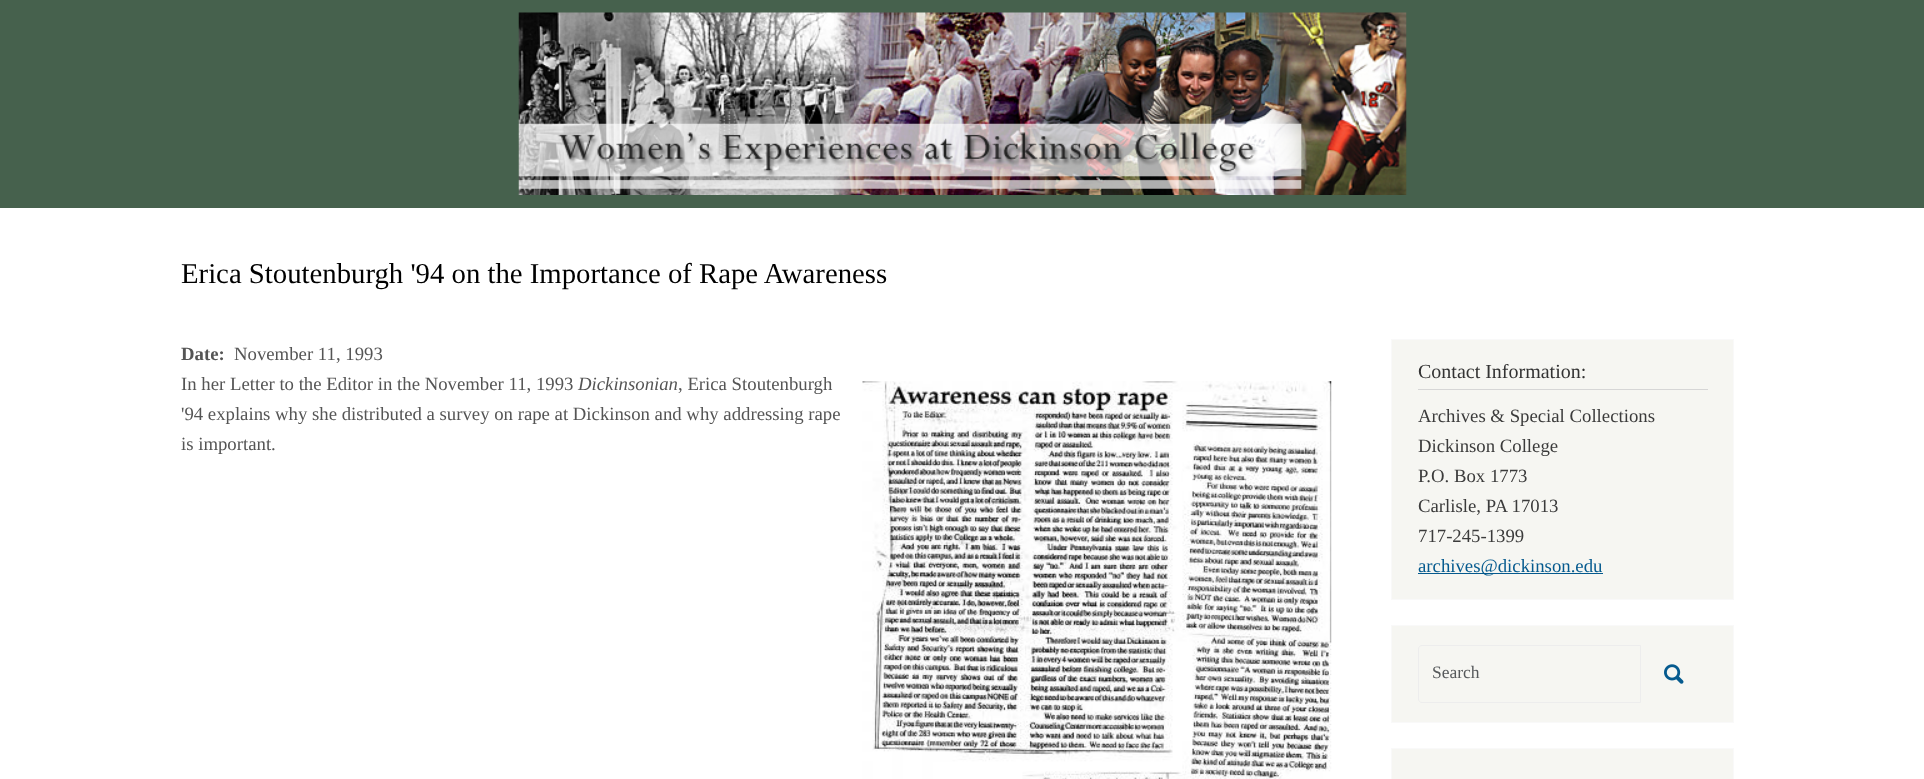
<svg xmlns="http://www.w3.org/2000/svg" xmlns:xlink="http://www.w3.org/1999/xlink" width="1924" height="779" viewBox="0 0 1924 779">
<style>
.cls-1{font:28.75px Liberation Serif;fill:#000000}
.cls-2{font:bold 18.75px Liberation Serif;fill:#555555}
.cls-3{font:18.75px Liberation Serif;fill:#555555}
.cls-4{font:italic 18.75px Liberation Serif;fill:#555555}
.cls-5{font:20px Liberation Serif;fill:#333333}
.cls-6{font:18.75px Liberation Serif;fill:#3b3b3b}
.cls-7{font:18.75px Liberation Serif;fill:#055a8e}
.cls-8{font:17.5px Liberation Serif;fill:#56595b}
</style>
<rect width="100%" height="100%" fill="#ffffff"/>
<rect fill="#46614d" x="0" y="0" width="1924" height="208"/>
<image xlink:href="image0.png" x="518" y="12" width="889" height="183"/>
<image xlink:href="image1.png" x="862" y="381" width="470" height="398"/>
<rect fill="#f6f6f2" stroke="#f9f9f9" x="1391.5" y="339.5" width="342" height="260"/>
<rect fill="#d6d6d6" x="1418" y="389" width="290" height="1"/>
<rect fill="#055a8e" x="1418" y="573" width="185" height="1"/>
<rect fill="#f6f6f2" stroke="#f9f9f9" x="1391.5" y="625.5" width="342" height="97"/>
<path fill="none" stroke="#ededed" d="M1422 645.5H1640.5V702.5H1422C1420 702.5 1418.5 701 1418.5 699V649C1418.5 647 1420 645.5 1422 645.5Z"/>
<image xlink:href="image2.png" x="1664" y="664" width="20" height="20"/>
<rect fill="#f6f6f2" stroke="#f9f9f9" x="1391.5" y="748.5" width="342" height="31"/>
<text class="cls-1" x="181" y="283">Erica Stoutenburgh '94 on the Importance of Rape Awareness</text>
<text class="cls-2" x="181" y="360">Date:</text>
<text class="cls-3" x="234" y="360">November 11, 1993</text>
<text class="cls-3" x="181" y="390">In her Letter to the Editor in the November 11, 1993</text>
<text class="cls-4" x="578" y="390">Dickinsonian</text>
<text class="cls-3" x="678" y="390">, Erica Stoutenburgh</text>
<text class="cls-3"><tspan x="181" y="420">'94 explains why she distributed a survey on rape at Dickinson and why addressing rape</tspan><tspan x="181" y="450">is important.</tspan></text>
<text class="cls-5" x="1418" y="378">Contact Information:</text>
<text class="cls-6"><tspan x="1418" y="422">Archives &amp; Special Collections</tspan><tspan x="1418" y="452">Dickinson College</tspan><tspan x="1418" y="482">P.O. Box 1773</tspan><tspan x="1418" y="512">Carlisle, PA 17013</tspan><tspan x="1418" y="542">717-245-1399</tspan></text>
<text class="cls-7" x="1418" y="572">archives@dickinson.edu</text>
<text class="cls-8" x="1432" y="678">Search</text>
</svg>
